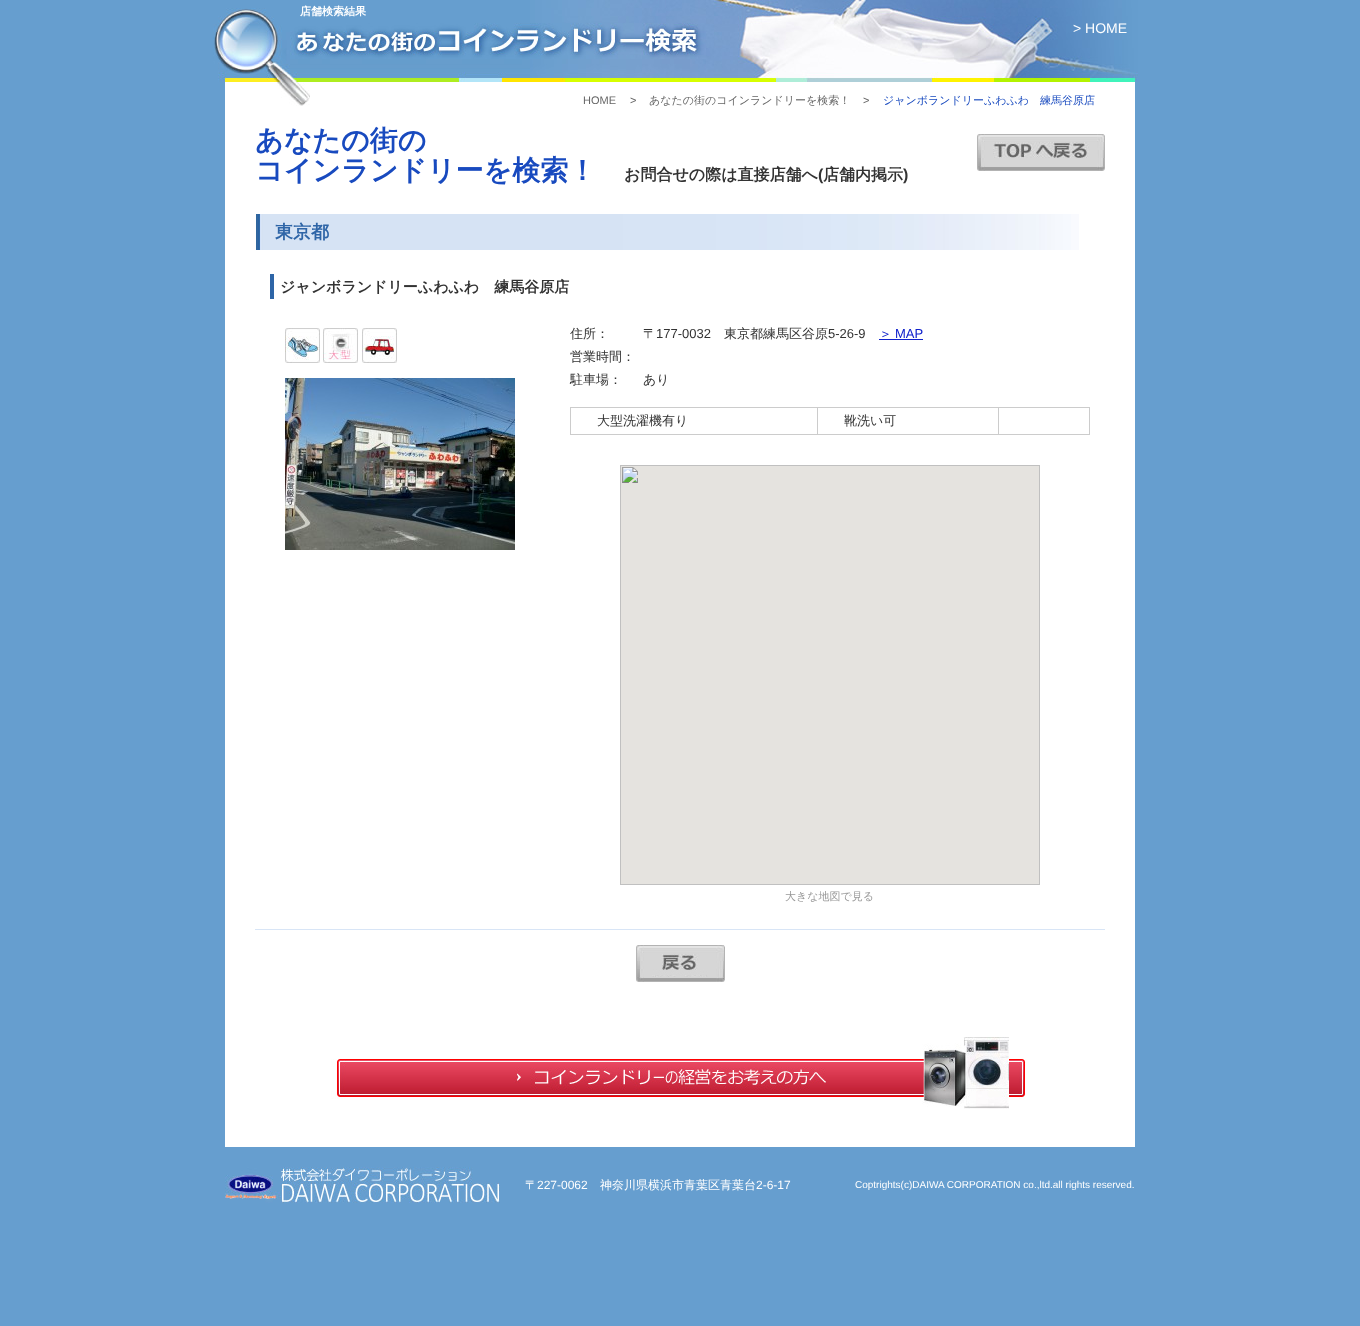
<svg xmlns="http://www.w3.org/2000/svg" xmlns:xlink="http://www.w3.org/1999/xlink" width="1360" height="1326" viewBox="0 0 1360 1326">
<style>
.cls-1{font:bold 11px WenQuanYi Zen Hei;fill:#ffffff}
.cls-2{font:14px Liberation Sans;fill:#ffffff}
.cls-3{font:11px Liberation Sans;fill:#666666}
.cls-4{font:500 11px WenQuanYi Zen Hei;fill:#666666}
.cls-5{font:500 11px WenQuanYi Zen Hei;fill:#184abf}
.cls-6{font:bold 28px WenQuanYi Zen Hei;fill:#184abf}
.cls-7{font:bold 16px WenQuanYi Zen Hei;fill:#333333}
.cls-8{font:bold 16px Liberation Sans;fill:#333333}
.cls-9{font:bold 18px WenQuanYi Zen Hei;fill:#2e65a7}
.cls-10{font:bold 15px WenQuanYi Zen Hei;fill:#333333}
.cls-11{font:500 13px WenQuanYi Zen Hei;fill:#333333}
.cls-12{font:13px Liberation Sans;fill:#333333}
.cls-13{font:500 13px WenQuanYi Zen Hei;fill:#1122cc}
.cls-14{font:13px Liberation Sans;fill:#1122cc}
.cls-15{font:500 11px WenQuanYi Zen Hei;fill:#999999}
.cls-16{font:500 12px WenQuanYi Zen Hei;fill:#ffffff}
.cls-17{font:12px Liberation Sans;fill:#ffffff}
.cls-18{font:10px Liberation Sans;fill:#ffffff}
</style>
<rect width="100%" height="100%" fill="#669ecf"/>
<image xlink:href="image0.png" x="213" y="0" width="925" height="82"/>
<image xlink:href="image1.png" x="290" y="23" width="416" height="36"/>
<rect fill="#ffffff" x="225" y="82" width="910" height="1065"/>
<image xlink:href="image2.png" x="277" y="82" width="33" height="24"/>
<image xlink:href="image3.png" x="977" y="134" width="128" height="37"/>
<image xlink:href="image4.png" x="256" y="214" width="823" height="36"/>
<rect fill="#2e65a7" x="270" y="274" width="4" height="25"/>
<image xlink:href="image5.png" x="285" y="328" width="35" height="35"/>
<image xlink:href="image6.png" x="323" y="328" width="35" height="35"/>
<image xlink:href="image7.png" x="362" y="328" width="35" height="35"/>
<image xlink:href="image8.png" x="285" y="378" width="230" height="172"/>
<rect fill="#1122cc" x="879" y="339" width="44" height="1"/>
<rect fill="#cccccc" x="998" y="407" width="92" height="1"/>
<rect fill="#cccccc" x="1089" y="407" width="1" height="28"/>
<rect fill="#cccccc" x="998" y="434" width="92" height="1"/>
<rect fill="#cccccc" x="998" y="407" width="1" height="28"/>
<rect fill="#cccccc" x="817" y="407" width="182" height="1"/>
<rect fill="#cccccc" x="817" y="434" width="182" height="1"/>
<rect fill="#cccccc" x="817" y="407" width="1" height="28"/>
<rect fill="#cccccc" x="570" y="407" width="248" height="1"/>
<rect fill="#cccccc" x="570" y="434" width="248" height="1"/>
<rect fill="#cccccc" x="570" y="407" width="1" height="28"/>
<image xlink:href="image9.png" x="620" y="465" width="420" height="420"/>
<rect fill="#d8e5f6" x="255" y="929" width="850" height="1"/>
<image xlink:href="image10.png" x="636" y="945" width="89" height="37"/>
<image xlink:href="image11.png" x="331" y="1037" width="695" height="72"/>
<image xlink:href="image12.png" x="225" y="1167" width="275" height="36"/>
<text class="cls-1" x="300" y="15">店舗検索結果</text>
<text class="cls-2" x="1073" y="33">&gt; HOME</text>
<text class="cls-3" x="583" y="104">HOME</text>
<text class="cls-3" x="630" y="104">&gt;</text>
<text class="cls-4" x="649" y="104">あなたの街のコインランドリーを検索！</text>
<text class="cls-3" x="863" y="104">&gt;</text>
<text class="cls-5" x="883" y="104">ジャンボランドリーふわふわ　練馬谷原店</text>
<text class="cls-6"><tspan x="255" y="150">あなたの街の</tspan><tspan x="255" y="180">コインランドリーを検索！</tspan></text>
<text class="cls-7" x="624" y="180">お問合せの際は直接店舗へ</text>
<text class="cls-8" x="818" y="180">(</text>
<text class="cls-7" x="823" y="180">店舗内掲示</text>
<text class="cls-8" x="903" y="180">)</text>
<text class="cls-9" x="275" y="238">東京都</text>
<text class="cls-10" x="280" y="292">ジャンボランドリーふわふわ　練馬谷原店</text>
<text class="cls-11" x="570" y="338">住所：</text>
<text class="cls-11" x="643" y="338">〒</text>
<text class="cls-12" x="656" y="338">177-0032</text>
<text class="cls-11" x="724" y="338">東京都練馬区谷原</text>
<text class="cls-12" x="828" y="338">5-26-9</text>
<text class="cls-13" x="879" y="338">＞</text>
<text class="cls-14" x="895" y="338">MAP</text>
<text class="cls-11"><tspan x="570" y="361">営業時間：</tspan><tspan x="570" y="384">駐車場：</tspan></text>
<text class="cls-11" x="643" y="384">あり</text>
<text class="cls-11" x="597" y="425">大型洗濯機有り</text>
<text class="cls-11" x="844" y="425">靴洗い可</text>
<text class="cls-15" x="785" y="900">大きな地図で見る</text>
<text class="cls-16" x="525" y="1189">〒</text>
<text class="cls-17" x="537" y="1189">227-0062</text>
<text class="cls-16" x="600" y="1189">神奈川県横浜市青葉区青葉台</text>
<text class="cls-17" x="756" y="1189">2-6-17</text>
<text class="cls-18" x="855" y="1188">Coptrights(c)DAIWA CORPORATION co.,ltd.all rights reserved.</text>
</svg>
